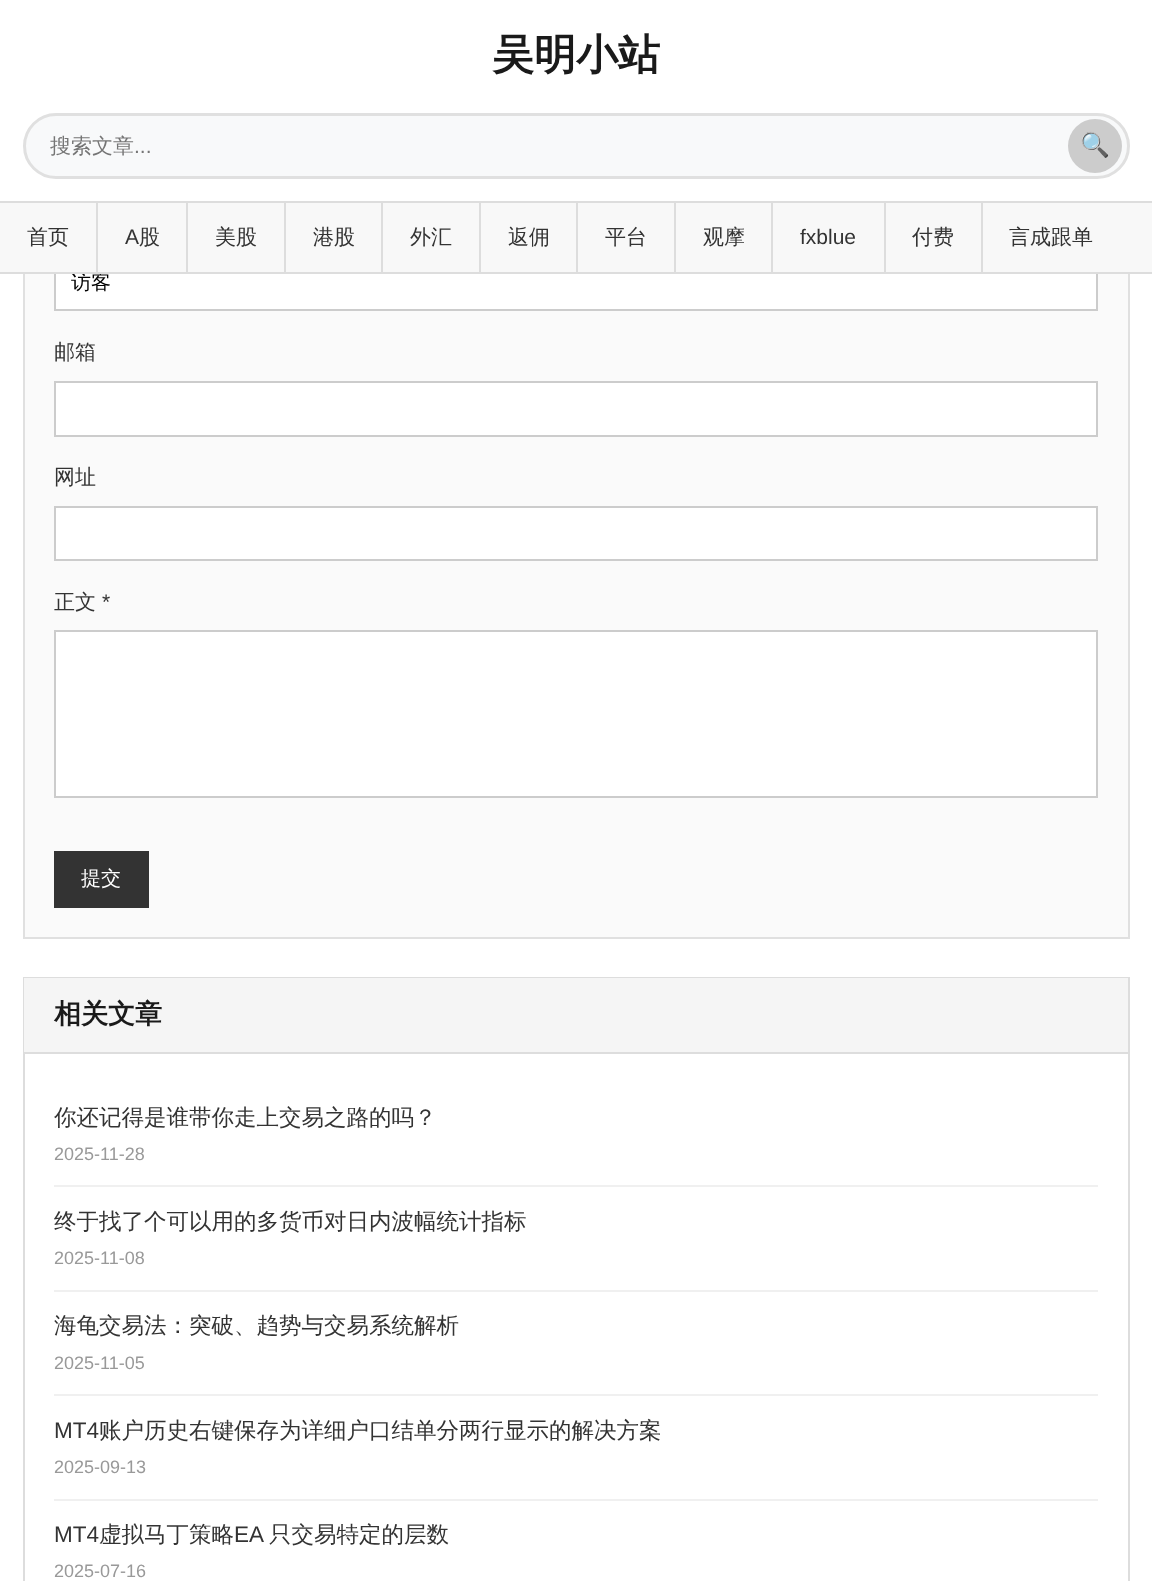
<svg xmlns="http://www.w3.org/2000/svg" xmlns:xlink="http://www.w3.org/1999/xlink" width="1152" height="1581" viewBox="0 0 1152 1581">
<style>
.cls-1{font:bold 42px WenQuanYi Zen Hei;fill:#1a1a1a}
.cls-2{font:500 21px WenQuanYi Zen Hei;fill:#757575}
.cls-3{font:21px Liberation Sans;fill:#757575}
.cls-4{font:24px Noto Color Emoji;fill:#444444}
.cls-5{font:500 21px WenQuanYi Zen Hei;fill:#333333}
.cls-6{font:21px Liberation Sans;fill:#333333}
.cls-7{font:500 20px WenQuanYi Zen Hei;fill:#000000}
.cls-8{font:500 20px WenQuanYi Zen Hei;fill:#ffffff}
.cls-9{font:bold 27px WenQuanYi Zen Hei;fill:#1a1a1a}
.cls-10{font:500 22.5px WenQuanYi Zen Hei;fill:#333333}
.cls-11{font:18px Liberation Sans;fill:#999999}
.cls-12{font:22.5px Liberation Sans;fill:#333333}
</style>
<rect width="100%" height="100%" fill="#ffffff"/>
<rect fill="#fafafa" x="25" y="274" width="1103" height="663"/>
<rect fill="none" stroke="#e0e0e0" stroke-width="2" x="24" y="103" width="1105" height="835"/>
<rect fill="#ffffff" x="23" y="102" width="1107" height="99"/>
<rect fill="#f8f9fa" stroke="#e0e0e0" stroke-width="3" x="24.5" y="114.5" width="1104" height="63" rx="31.5"/>
<circle fill="#cccccc" cx="1095" cy="146" r="27"/>
<rect fill="#ffffff" x="56" y="274" width="1040" height="35"/>
<rect fill="none" stroke="#cccccc" stroke-width="2" x="55" y="256" width="1042" height="54"/>
<rect fill="#f8f8f8" x="0" y="203" width="1152" height="69"/>
<rect fill="#dddddd" x="0" y="201" width="1152" height="2"/>
<rect fill="#dddddd" x="96" y="203" width="2" height="69"/>
<rect fill="#dddddd" x="186" y="203" width="2" height="69"/>
<rect fill="#dddddd" x="284" y="203" width="2" height="69"/>
<rect fill="#dddddd" x="381" y="203" width="2" height="69"/>
<rect fill="#dddddd" x="479" y="203" width="2" height="69"/>
<rect fill="#dddddd" x="576" y="203" width="2" height="69"/>
<rect fill="#dddddd" x="674" y="203" width="2" height="69"/>
<rect fill="#dddddd" x="771" y="203" width="2" height="69"/>
<rect fill="#dddddd" x="884" y="203" width="2" height="69"/>
<rect fill="#dddddd" x="981" y="203" width="2" height="69"/>
<rect fill="#ffffff" stroke="#cccccc" stroke-width="2" x="55" y="382" width="1042" height="54"/>
<rect fill="#ffffff" stroke="#cccccc" stroke-width="2" x="55" y="507" width="1042" height="53"/>
<rect fill="#ffffff" stroke="#cccccc" stroke-width="2" x="55" y="631" width="1042" height="166"/>
<rect fill="#333333" x="54" y="851" width="95" height="57"/>
<rect fill="none" stroke="#dddddd" stroke-width="2" x="24" y="978" width="1105" height="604"/>
<rect fill="#f5f5f5" x="24" y="978" width="1104" height="74"/>
<rect fill="#dddddd" x="24" y="1052" width="1104" height="2"/>
<rect fill="#f0f0f0" x="54" y="1185" width="1044" height="2"/>
<rect fill="#f0f0f0" x="54" y="1290" width="1044" height="2"/>
<rect fill="#f0f0f0" x="54" y="1394" width="1044" height="2"/>
<rect fill="#f0f0f0" x="54" y="1499" width="1044" height="2"/>
<text class="cls-1" x="492" y="69">吴明小站</text>
<text class="cls-2" x="50" y="153">搜索文章</text>
<text class="cls-3" x="134" y="153">...</text>
<text class="cls-4" x="1080" y="153">🔍</text>
<text class="cls-5" x="27" y="244">首页</text>
<text class="cls-6" x="125" y="244">A</text>
<text class="cls-5" x="139" y="244">股</text>
<text class="cls-5" x="215" y="244">美股</text>
<text class="cls-5" x="313" y="244">港股</text>
<text class="cls-5" x="410" y="244">外汇</text>
<text class="cls-5" x="508" y="244">返佣</text>
<text class="cls-5" x="605" y="244">平台</text>
<text class="cls-5" x="703" y="244">观摩</text>
<text class="cls-6" x="800" y="244">fxblue</text>
<text class="cls-5" x="912" y="244">付费</text>
<text class="cls-5" x="1009" y="244">言成跟单</text>
<text class="cls-7" x="71" y="289">访客</text>
<rect fill="#dddddd" x="0" y="272" width="1152" height="2"/>
<text class="cls-5" x="54" y="359">邮箱</text>
<text class="cls-5" x="54" y="484">网址</text>
<text class="cls-5" x="54" y="609">正文</text>
<text class="cls-6" x="102" y="609">*</text>
<text class="cls-8" x="81" y="885">提交</text>
<text class="cls-9" x="54" y="1023">相关文章</text>
<text class="cls-10" x="54" y="1125">你还记得是谁带你走上交易之路的吗？</text>
<text class="cls-11" x="54" y="1160">2025-11-28</text>
<text class="cls-10" x="54" y="1229">终于找了个可以用的多货币对日内波幅统计指标</text>
<text class="cls-11" x="54" y="1264">2025-11-08</text>
<text class="cls-10" x="54" y="1333">海龟交易法：突破、趋势与交易系统解析</text>
<text class="cls-11" x="54" y="1369">2025-11-05</text>
<text class="cls-12" x="54" y="1438">MT4</text>
<text class="cls-10" x="99" y="1438">账户历史右键保存为详细户口结单分两行显示的解决方案</text>
<text class="cls-11" x="54" y="1473">2025-09-13</text>
<text class="cls-12" x="54" y="1542">MT4</text>
<text class="cls-10" x="99" y="1542">虚拟马丁策略</text>
<text class="cls-12" x="234" y="1542">EA</text>
<text class="cls-10" x="269" y="1542">只交易特定的层数</text>
<text class="cls-11" x="54" y="1577">2025-07-16</text>
</svg>
